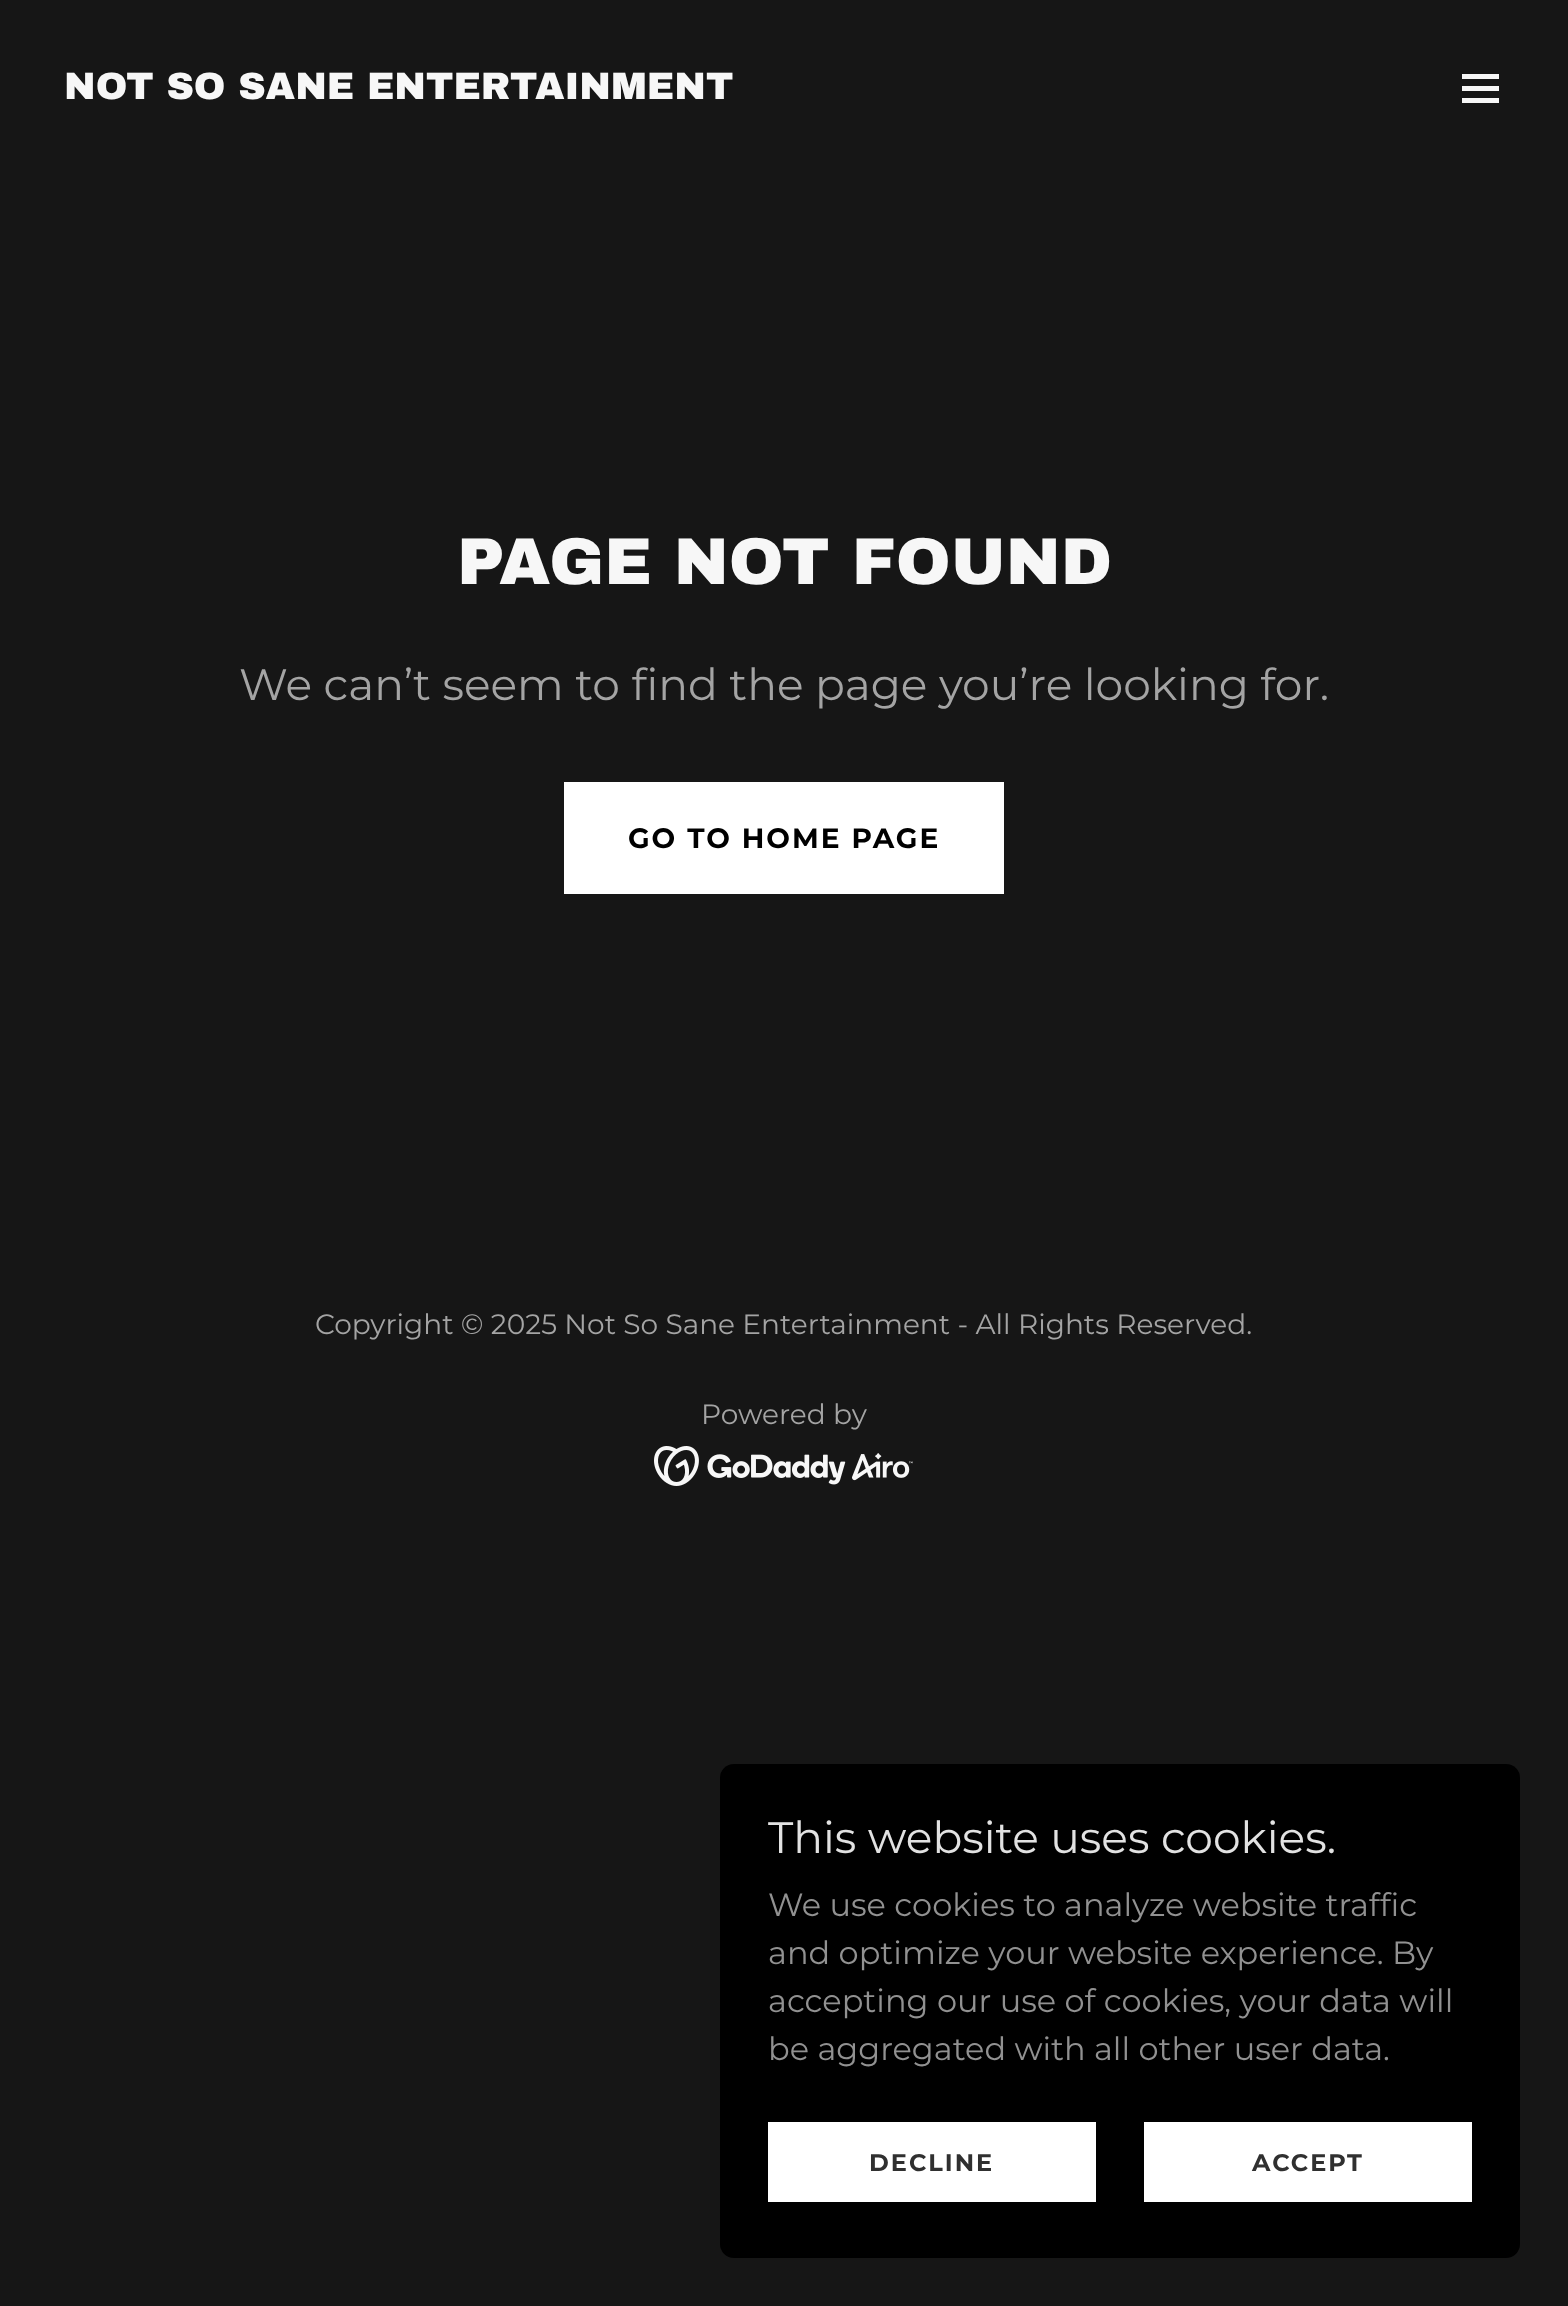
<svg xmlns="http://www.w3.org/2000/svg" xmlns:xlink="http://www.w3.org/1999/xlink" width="1568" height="2306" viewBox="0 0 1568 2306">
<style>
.cls-1{font:900 38px Archivo Black;fill:#f7f7f7}
.cls-2{font:900 66px Archivo Black;fill:#f7f7f7}
.cls-3{font:44px Montserrat;fill:#a4a4a4}
.cls-4{font:bold 28px Montserrat;letter-spacing:2px;fill:#000000}
.cls-5{font:28px Montserrat;fill:#a4a4a4}
.cls-6{font:44px Montserrat;fill:#e2e2e2}
.cls-7{font:32px Montserrat;fill:#919191}
.cls-8{font:bold 24px Montserrat;letter-spacing:2px;fill:#303030}
</style>
<rect width="100%" height="100%" fill="#161616"/>
<rect fill="#f7f7f7" x="1462" y="74" width="37" height="5"/>
<rect fill="#f7f7f7" x="1462" y="86" width="37" height="5"/>
<rect fill="#f7f7f7" x="1462" y="98" width="37" height="5"/>
<rect fill="#ffffff" x="564" y="782" width="440" height="112"/>
<image xlink:href="image0.png" x="654" y="1446" width="259" height="40"/>
<rect fill="#000000" x="720" y="1764" width="800" height="494" rx="14"/>
<rect fill="#ffffff" x="768" y="2122" width="328" height="80"/>
<rect fill="#ffffff" x="1144" y="2122" width="328" height="80"/>
<text class="cls-1" x="64" y="99">NOT SO SANE ENTERTAINMENT</text>
<text class="cls-2" x="457" y="584">PAGE NOT FOUND</text>
<text class="cls-3" x="239" y="700">We can’t seem to find the page you’re looking for.</text>
<text class="cls-4" x="628" y="848">GO TO HOME PAGE</text>
<text class="cls-5" x="315" y="1334">Copyright © 2025 Not So Sane Entertainment - All Rights Reserved.</text>
<text class="cls-5" x="701" y="1424">Powered by</text>
<text class="cls-6" x="768" y="1853">This website uses cookies.</text>
<text class="cls-7"><tspan x="768" y="1916">We use cookies to analyze website traffic</tspan><tspan x="768" y="1964">and optimize your website experience. By</tspan><tspan x="768" y="2012">accepting our use of cookies, your data will</tspan><tspan x="768" y="2060">be aggregated with all other user data.</tspan></text>
<text class="cls-8" x="869" y="2171">DECLINE</text>
<text class="cls-8" x="1252" y="2171">ACCEPT</text>
</svg>
